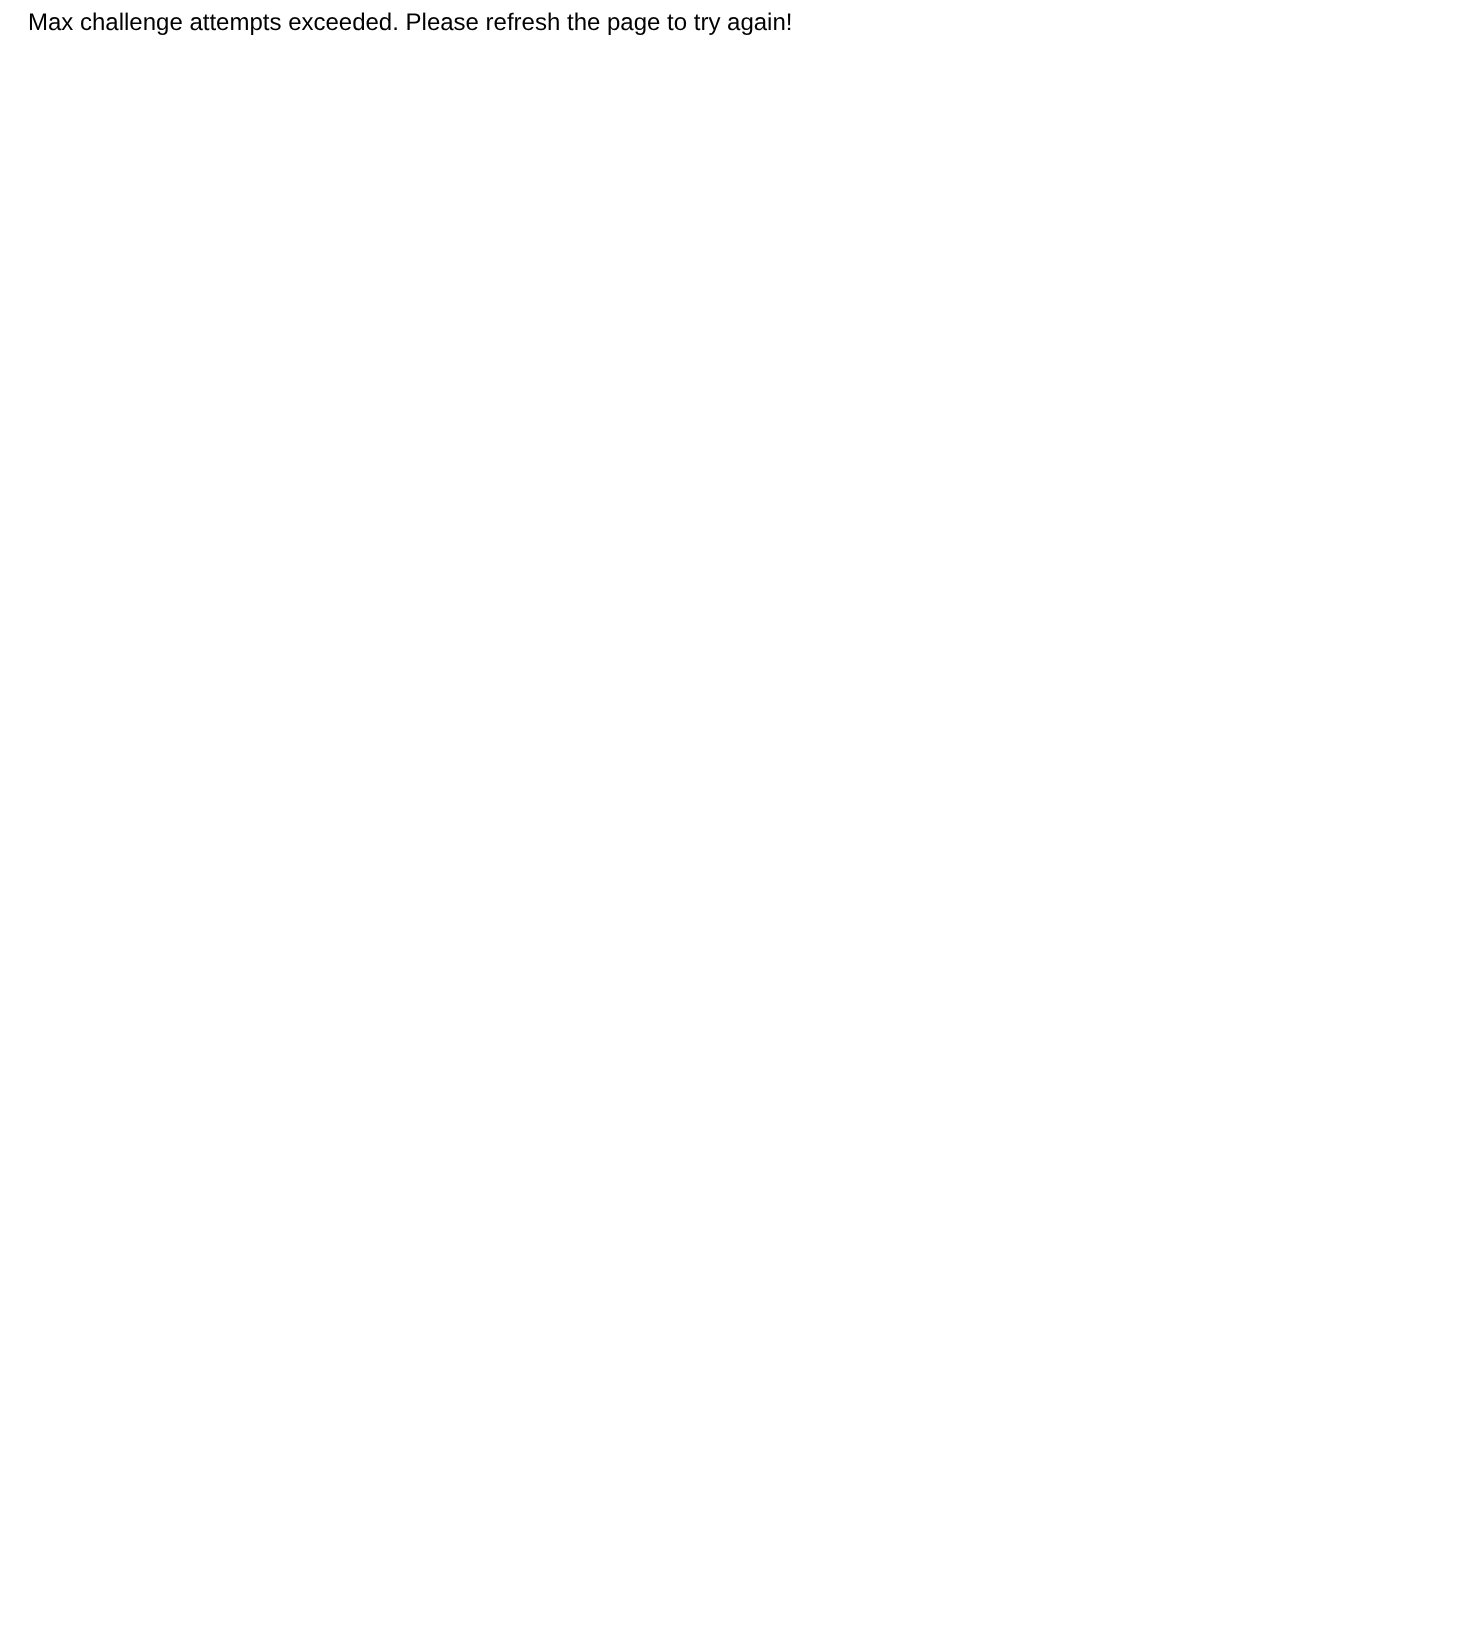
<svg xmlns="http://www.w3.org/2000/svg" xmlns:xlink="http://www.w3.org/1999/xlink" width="1463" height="1637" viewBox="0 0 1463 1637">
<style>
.cls-1{font:24px Liberation Sans;fill:#000000}
</style>
<rect width="100%" height="100%" fill="#ffffff"/>
<text class="cls-1" x="28" y="30">Max challenge attempts exceeded. Please refresh the page to try again!</text>
</svg>
